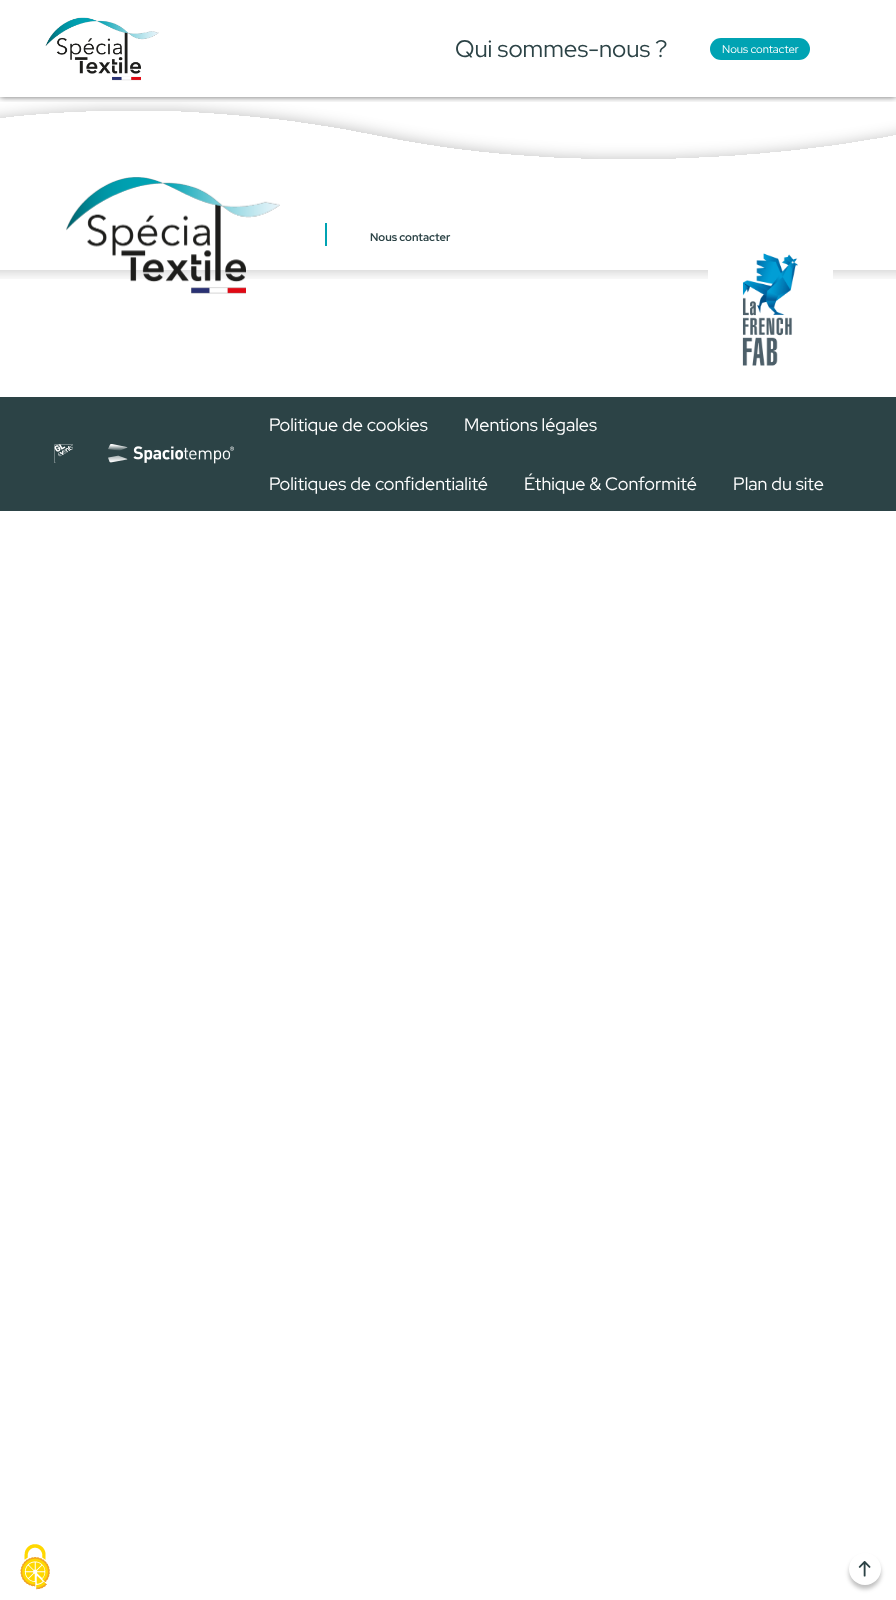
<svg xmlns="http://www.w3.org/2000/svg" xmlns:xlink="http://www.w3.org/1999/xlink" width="896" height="1600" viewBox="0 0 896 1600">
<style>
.cls-1{font:24px Red Hat Display;fill:#2c4346}
.cls-2{font:11.25px Red Hat Display;fill:#ffffff}
.cls-3{font:bold 11.25px Red Hat Display;fill:#2c4346}
.cls-4{font:18px Red Hat Display;fill:#ffffff}
</style>
<defs>
<clipPath id="clip1"><rect x="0" y="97" width="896" height="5"/></clipPath>
</defs>
<rect width="100%" height="100%" fill="#ffffff"/>
<image xlink:href="image1.png" x="0" y="101" width="896" height="178"/>
<g clip-path="url(#clip1)">
<rect fill="#000000" fill-opacity="0.6" filter="blur(3px)" x="0" y="0" width="896" height="97"/>
</g>
<image xlink:href="image0.png" x="45" y="17" width="114" height="64"/>
<rect fill="#00a3b3" x="710" y="38" width="100" height="22" rx="11"/>
<image xlink:href="image2.png" x="66" y="177" width="214" height="117"/>
<rect fill="#00a3b3" x="325" y="223" width="2" height="23"/>
<image xlink:href="image3.png" x="708" y="253" width="125" height="113"/>
<rect fill="#2c4346" x="0" y="397" width="896" height="114"/>
<image xlink:href="image4.png" x="54" y="444" width="19" height="19"/>
<image xlink:href="image5.png" x="108" y="444" width="126" height="20"/>
<image xlink:href="image6.png" x="20" y="1544" width="30" height="46"/>
<rect fill="#000000" fill-opacity="0.25" filter="blur(2px)" x="849" y="1557" width="32" height="32" rx="16"/>
<circle fill="#ffffff" cx="865" cy="1569" r="16"/>
<image xlink:href="image7.png" x="858" y="1561" width="13" height="16"/>
<text class="cls-1" x="455" y="57">Qui sommes-nous ?</text>
<text class="cls-2" x="722" y="53">Nous contacter</text>
<text class="cls-3" x="370" y="241">Nous contacter</text>
<text class="cls-4" x="269" y="431">Politique de cookies</text>
<text class="cls-4" x="464" y="431">Mentions légales</text>
<text class="cls-4" x="269" y="490">Politiques de confidentialité</text>
<text class="cls-4" x="524" y="490">Éthique &amp; Conformité</text>
<text class="cls-4" x="733" y="490">Plan du site</text>
</svg>
